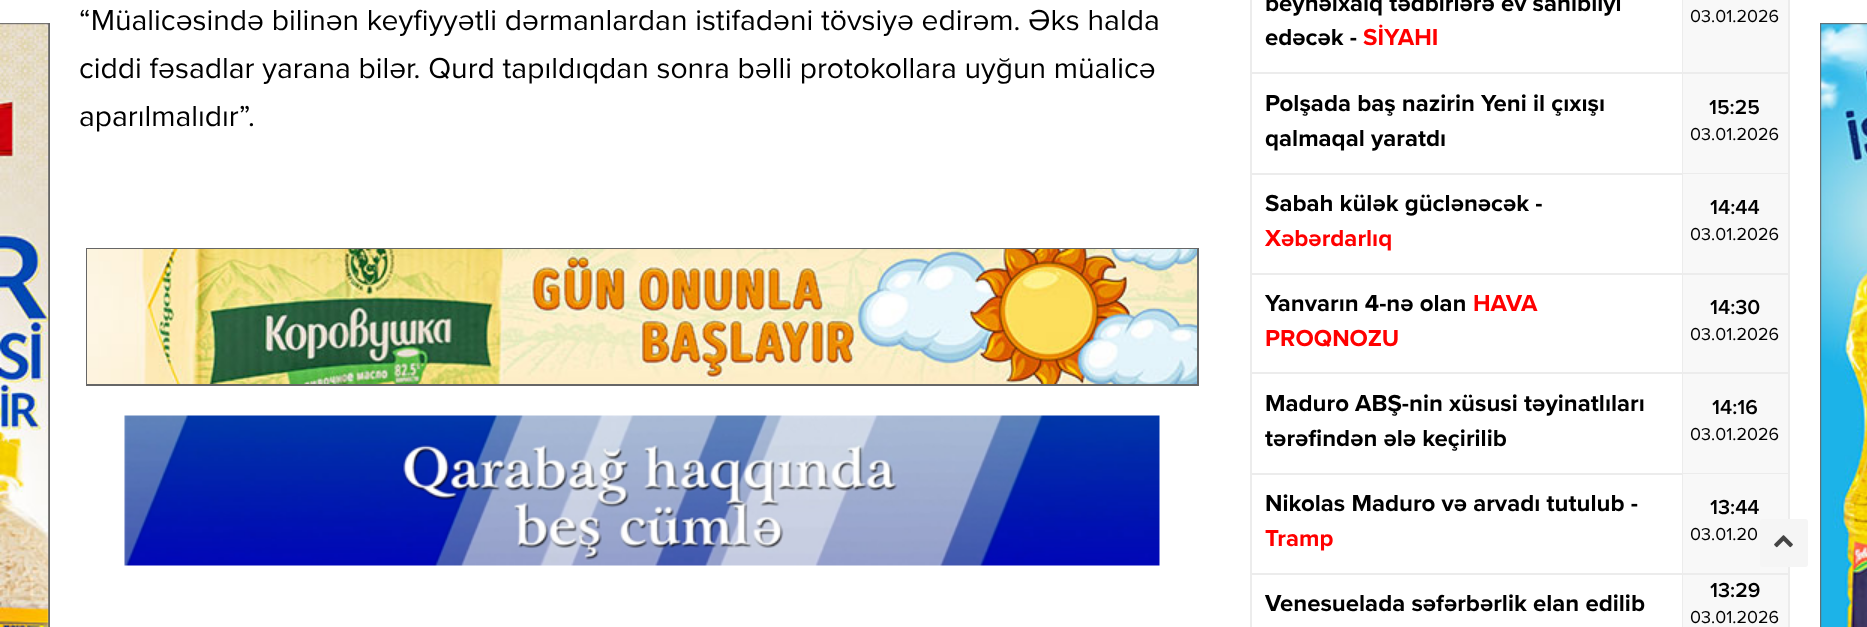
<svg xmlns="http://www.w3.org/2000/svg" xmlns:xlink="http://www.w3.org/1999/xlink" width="1867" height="627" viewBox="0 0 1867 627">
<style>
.cls-1{font:30px Proxima Nova;fill:#000000}
.cls-2{font:bold 24px Proxima Nova;fill:#000000}
.cls-3{font:bold 24px Proxima Nova;fill:#ff0000}
.cls-4{font:18px Proxima Nova;fill:#000000}
.cls-5{font:600 21px Proxima Nova;fill:#000000}
</style>
<rect width="100%" height="100%" fill="#ffffff"/>
<rect fill="none" stroke="#666666" stroke-width="2" x="-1" y="24" width="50" height="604"/>
<image xlink:href="image0.png" x="0" y="23" width="49" height="604"/>
<rect fill="none" stroke="#666666" stroke-width="2" x="87" y="249" width="1111" height="136"/>
<image xlink:href="image1.png" x="87" y="249" width="1110" height="135"/>
<image xlink:href="image2.png" x="124" y="415" width="1036" height="151"/>
<rect fill="none" stroke="#ececec" stroke-width="2" x="1251" y="-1" width="538" height="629"/>
<rect fill="#ececec" x="1251" y="72" width="537" height="2"/>
<rect fill="#ececec" x="1682" y="0" width="1" height="72"/>
<rect fill="#f8f8f8" x="1683" y="0" width="105" height="72"/>
<rect fill="#ececec" x="1251" y="173" width="537" height="2"/>
<rect fill="#ececec" x="1682" y="74" width="1" height="99"/>
<rect fill="#f8f8f8" x="1683" y="74" width="105" height="99"/>
<rect fill="#ececec" x="1251" y="273" width="537" height="2"/>
<rect fill="#ececec" x="1682" y="174" width="1" height="99"/>
<rect fill="#f8f8f8" x="1683" y="174" width="105" height="99"/>
<rect fill="#ececec" x="1251" y="372" width="537" height="2"/>
<rect fill="#ececec" x="1682" y="275" width="1" height="97"/>
<rect fill="#f8f8f8" x="1683" y="275" width="105" height="97"/>
<rect fill="#ececec" x="1251" y="473" width="537" height="2"/>
<rect fill="#ececec" x="1682" y="374" width="1" height="99"/>
<rect fill="#f8f8f8" x="1683" y="374" width="105" height="99"/>
<rect fill="#ececec" x="1251" y="573" width="537" height="2"/>
<rect fill="#ececec" x="1682" y="474" width="1" height="99"/>
<rect fill="#f8f8f8" x="1683" y="474" width="105" height="99"/>
<rect fill="#ececec" x="1682" y="575" width="1" height="52"/>
<rect fill="#f8f8f8" x="1683" y="575" width="105" height="52"/>
<rect fill="#f5f5f5" x="1760" y="519" width="48" height="48" rx="3"/>
<image xlink:href="image3.png" x="1774" y="535" width="19" height="13"/>
<rect fill="none" stroke="#666666" stroke-width="2" x="1821" y="24" width="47" height="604"/>
<image xlink:href="image4.png" x="1820" y="23" width="47" height="604"/>
<text class="cls-1"><tspan x="79" y="30">“Müalicəsində bilinən keyfiyyətli dərmanlardan istifadəni tövsiyə edirəm. Əks halda</tspan><tspan x="79" y="78">ciddi fəsadlar yarana bilər. Qurd tapıldıqdan sonra bəlli protokollara uyğun müalicə</tspan><tspan x="79" y="126">aparılmalıdır”.</tspan></text>
<text class="cls-2"><tspan x="1265" y="11">beynəlxalq tədbirlərə ev sahibliyi</tspan><tspan x="1265" y="45">edəcək -</tspan></text>
<text class="cls-3" x="1363" y="45">SİYAHI</text>
<text class="cls-4" x="1690" y="22">03.01.2026</text>
<text class="cls-2"><tspan x="1265" y="111">Polşada baş nazirin Yeni il çıxışı</tspan><tspan x="1265" y="146">qalmaqal yaratdı</tspan></text>
<text class="cls-5" x="1709" y="114">15:25</text>
<text class="cls-4" x="1690" y="140">03.01.2026</text>
<text class="cls-2" x="1265" y="211">Sabah külək güclənəcək -</text>
<text class="cls-3" x="1265" y="246">Xəbərdarlıq</text>
<text class="cls-5" x="1710" y="214">14:44</text>
<text class="cls-4" x="1690" y="240">03.01.2026</text>
<text class="cls-2" x="1265" y="311">Yanvarın 4-nə olan</text>
<text class="cls-3" x="1473" y="311">HAVA</text>
<text class="cls-3" x="1265" y="346">PROQNOZU</text>
<text class="cls-5" x="1710" y="314">14:30</text>
<text class="cls-4" x="1690" y="340">03.01.2026</text>
<text class="cls-2"><tspan x="1265" y="411">Maduro ABŞ-nin xüsusi təyinatlıları</tspan><tspan x="1265" y="446">tərəfindən ələ keçirilib</tspan></text>
<text class="cls-5" x="1712" y="414">14:16</text>
<text class="cls-4" x="1690" y="440">03.01.2026</text>
<text class="cls-2" x="1265" y="511">Nikolas Maduro və arvadı tutulub -</text>
<text class="cls-3" x="1265" y="546">Tramp</text>
<text class="cls-5" x="1710" y="514">13:44</text>
<text class="cls-4" x="1690" y="540">03.01.20</text>
<text class="cls-2" x="1265" y="611">Venesuelada səfərbərlik elan edilib</text>
<text class="cls-5" x="1710" y="597">13:29</text>
<text class="cls-4" x="1690" y="623">03.01.2026</text>
</svg>
